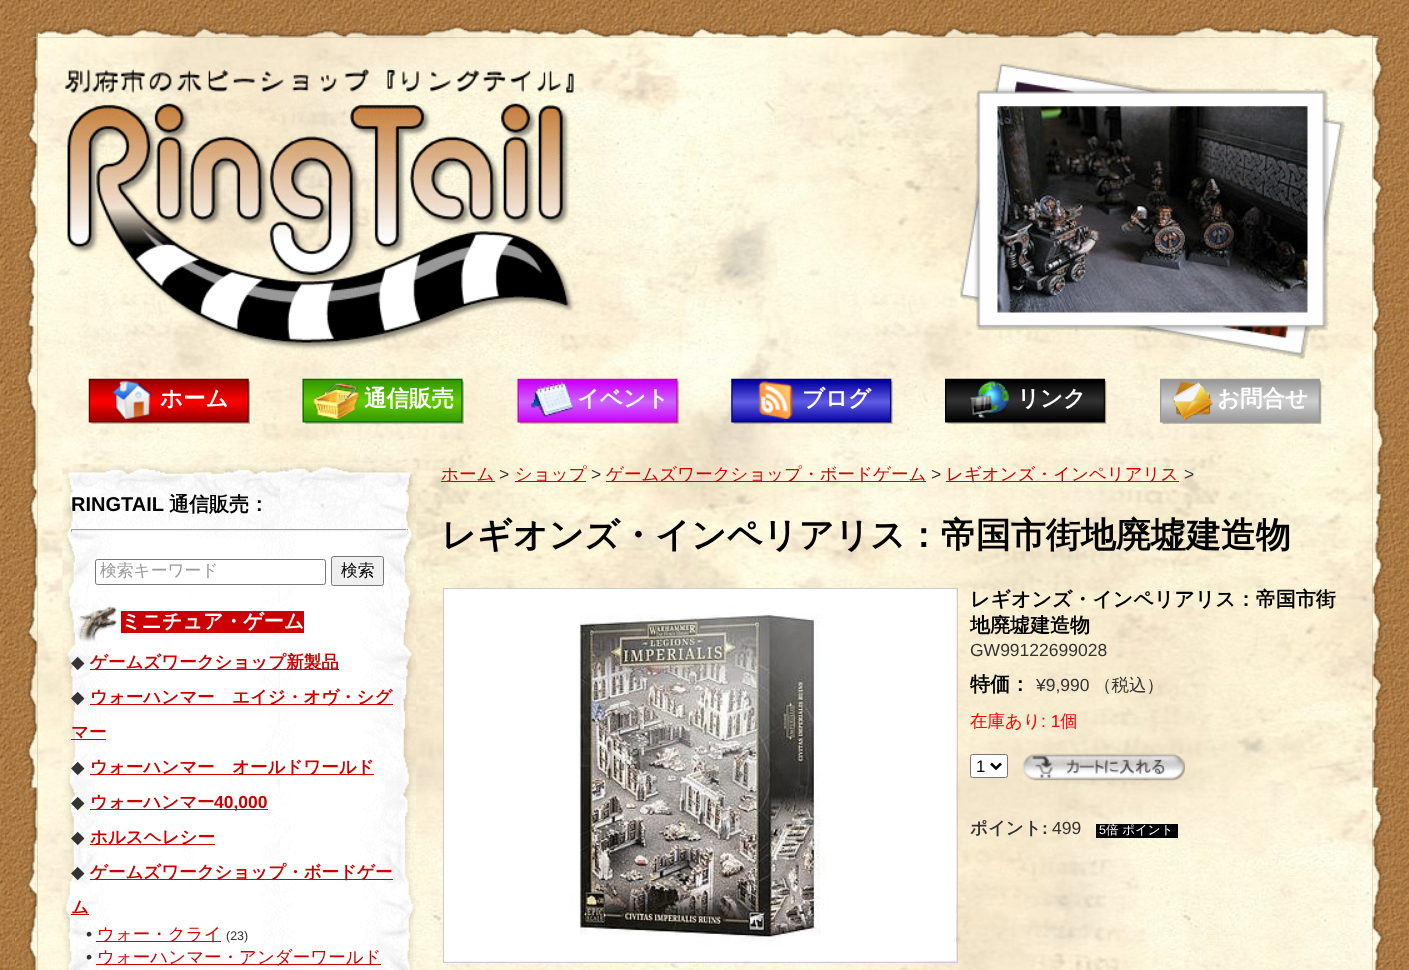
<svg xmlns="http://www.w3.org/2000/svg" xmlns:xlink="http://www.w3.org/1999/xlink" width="1409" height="970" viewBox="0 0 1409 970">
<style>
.cls-1{font:bold 22.5px WenQuanYi Zen Hei;fill:#ffffff}
.cls-2{font:bold 20px Liberation Sans;fill:#000000}
.cls-3{font:bold 20px WenQuanYi Zen Hei;fill:#000000}
.cls-4{font:500 16.75px WenQuanYi Zen Hei;fill:#999999}
.cls-5{font:500 16.75px WenQuanYi Zen Hei;fill:#000000}
.cls-6{font:bold 20px WenQuanYi Zen Hei;fill:#ffffff}
.cls-7{font:17.5px DejaVu Sans;fill:#333333}
.cls-8{font:bold 17.5px WenQuanYi Zen Hei;fill:#cc0000}
.cls-9{font:bold 17.5px Liberation Sans;fill:#cc0000}
.cls-10{font:17.5px Liberation Sans;fill:#333333}
.cls-11{font:500 17.5px WenQuanYi Zen Hei;fill:#cc0000}
.cls-12{font:12.5px Liberation Sans;fill:#333333}
.cls-13{font:bold 35px WenQuanYi Zen Hei;fill:#000000}
.cls-14{font:500 17.5px WenQuanYi Zen Hei;fill:#333333}
.cls-15{font:500 17.5px WenQuanYi Zen Hei;fill:#ff0000}
.cls-16{font:17.5px Liberation Sans;fill:#ff0000}
.cls-17{font:16.75px Liberation Sans;fill:#000000}
.cls-18{font:bold 17.5px WenQuanYi Zen Hei;fill:#333333}
.cls-19{font:bold 17.5px Liberation Sans;fill:#333333}
.cls-20{font:12.5px Liberation Sans;fill:#ffffff}
.cls-21{font:500 12.5px WenQuanYi Zen Hei;fill:#ffffff}
</style>
<rect width="100%" height="100%" fill="#ffffff"/>
<image xlink:href="image0.png" x="0" y="0" width="1409" height="970"/>
<image xlink:href="image1.png" x="12" y="12" width="26" height="26"/>
<image xlink:href="image2.png" x="37" y="12" width="1336" height="26"/>
<image xlink:href="image3.png" x="1372" y="12" width="26" height="26"/>
<image xlink:href="image4.png" x="12" y="37" width="26" height="933"/>
<image xlink:href="image5.png" x="37" y="37" width="1336" height="933"/>
<image xlink:href="image6.png" x="64" y="62" width="515" height="293"/>
<image xlink:href="image7.png" x="952" y="62" width="393" height="297"/>
<image xlink:href="image8.png" x="997" y="106" width="311" height="207"/>
<image xlink:href="image9.png" x="88" y="378" width="162" height="46"/>
<image xlink:href="image10.png" x="112" y="380" width="41" height="41"/>
<image xlink:href="image11.png" x="302" y="378" width="162" height="46"/>
<image xlink:href="image12.png" x="313" y="383" width="46" height="37"/>
<image xlink:href="image13.png" x="517" y="378" width="162" height="46"/>
<image xlink:href="image14.png" x="530" y="381" width="43" height="37"/>
<image xlink:href="image15.png" x="731" y="378" width="162" height="46"/>
<image xlink:href="image16.png" x="758" y="381" width="35" height="38"/>
<image xlink:href="image17.png" x="945" y="378" width="162" height="46"/>
<image xlink:href="image18.png" x="970" y="381" width="39" height="37"/>
<image xlink:href="image19.png" x="1160" y="378" width="162" height="46"/>
<image xlink:href="image20.png" x="1172" y="381" width="41" height="40"/>
<image xlink:href="image21.png" x="62" y="463" width="355" height="507"/>
<image xlink:href="image22.png" x="62" y="463" width="355" height="82"/>
<rect fill="#9f9f9f" x="71" y="529" width="337" height="1"/>
<rect fill="#eeeeee" x="406" y="529" width="1" height="3"/>
<rect fill="#eeeeee" x="71" y="530" width="337" height="1"/>
<rect fill="#9f9f9f" x="71" y="529" width="1" height="3"/>
<rect fill="#ffffff" stroke="#767676" x="95.5" y="559.5" width="230" height="25" rx="2"/>
<rect fill="#efefef" stroke="#767676" x="331.5" y="556.5" width="52" height="29" rx="2"/>
<image xlink:href="image23.png" x="78" y="606" width="39" height="36"/>
<rect fill="#cc0000" x="121" y="611" width="183" height="22"/>
<rect fill="#cc0000" x="90" y="669" width="249" height="1"/>
<rect fill="#cc0000" x="90" y="704" width="303" height="1"/>
<rect fill="#cc0000" x="71" y="739" width="35" height="1"/>
<rect fill="#cc0000" x="90" y="774" width="284" height="1"/>
<rect fill="#cc0000" x="90" y="809" width="178" height="1"/>
<rect fill="#cc0000" x="90" y="844" width="125" height="1"/>
<rect fill="#cc0000" x="90" y="879" width="303" height="1"/>
<rect fill="#cc0000" x="71" y="914" width="18" height="1"/>
<rect fill="#cc0000" x="96" y="941" width="125" height="1"/>
<rect fill="#cc0000" x="96" y="964" width="285" height="1"/>
<rect fill="#cc0000" x="441" y="481" width="54" height="1"/>
<rect fill="#cc0000" x="515" y="481" width="71" height="1"/>
<rect fill="#cc0000" x="606" y="481" width="320" height="1"/>
<rect fill="#cc0000" x="946" y="481" width="233" height="1"/>
<rect fill="none" stroke="#cccccc" x="443.5" y="588.5" width="514" height="374"/>
<rect fill="none" stroke="#ffffff" stroke-width="6" x="447" y="592" width="506" height="366"/>
<image xlink:href="image24.png" x="450" y="595" width="500" height="360"/>
<rect fill="#ffffff" stroke="#767676" x="970.5" y="754.5" width="37" height="23" rx="2"/>
<path fill="none" stroke="#000000" stroke-width="2.5" d="M991 763.5L996 768.5L1001 763.5"/>
<image xlink:href="image25.png" x="1022" y="753" width="163" height="29"/>
<rect fill="#000000" x="1096" y="824" width="82" height="14"/>
<image xlink:href="image26.png" x="1372" y="37" width="26" height="933"/>
<text class="cls-1" x="160" y="406">ホーム</text>
<text class="cls-1" x="364" y="406">通信販売</text>
<text class="cls-1" x="577" y="406">イベント</text>
<text class="cls-1" x="802" y="406">ブログ</text>
<text class="cls-1" x="1017" y="406">リンク</text>
<text class="cls-1" x="1217" y="406">お問合せ</text>
<text class="cls-2" x="71" y="511">RINGTAIL</text>
<text class="cls-3" x="169" y="511">通信販売：</text>
<text class="cls-4" x="100" y="576">検索キーワード</text>
<text class="cls-5" x="341" y="576">検索</text>
<text class="cls-6" x="121" y="628">ミニチュア・ゲーム</text>
<text class="cls-7" x="71" y="668">◆</text>
<text class="cls-8" x="90" y="668">ゲームズワークショップ新製品</text>
<text class="cls-7" x="71" y="703">◆</text>
<text class="cls-8" x="90" y="703">ウォーハンマー　エイジ・オヴ・シグ</text>
<text class="cls-8" x="71" y="738">マー</text>
<text class="cls-7" x="71" y="773">◆</text>
<text class="cls-8" x="90" y="773">ウォーハンマー　オールドワールド</text>
<text class="cls-7" x="71" y="808">◆</text>
<text class="cls-8" x="90" y="808">ウォーハンマー</text>
<text class="cls-9" x="214" y="808">40,000</text>
<text class="cls-7" x="71" y="843">◆</text>
<text class="cls-8" x="90" y="843">ホルスヘレシー</text>
<text class="cls-7" x="71" y="878">◆</text>
<text class="cls-8" x="90" y="878">ゲームズワークショップ・ボードゲー</text>
<text class="cls-8" x="71" y="913">ム</text>
<text class="cls-10" x="86" y="940">•</text>
<text class="cls-11" x="97" y="940">ウォー・クライ</text>
<text class="cls-12" x="226" y="940">(23)</text>
<text class="cls-10" x="86" y="963">•</text>
<text class="cls-11" x="97" y="963">ウォーハンマー・アンダーワールド</text>
<text class="cls-11" x="441" y="480">ホーム</text>
<text class="cls-10" x="499" y="480">&gt;</text>
<text class="cls-11" x="515" y="480">ショップ</text>
<text class="cls-10" x="591" y="480">&gt;</text>
<text class="cls-11" x="606" y="480">ゲームズワークショップ・ボードゲーム</text>
<text class="cls-10" x="931" y="480">&gt;</text>
<text class="cls-11" x="946" y="480">レギオンズ・インペリアリス</text>
<text class="cls-10" x="1184" y="480">&gt;</text>
<text class="cls-13" x="441" y="547">レギオンズ・インペリアリス：帝国市街地廃墟建造物</text>
<text class="cls-3"><tspan x="970" y="606">レギオンズ・インペリアリス：帝国市街</tspan><tspan x="970" y="632">地廃墟建造物</tspan></text>
<text class="cls-10" x="970" y="656">GW99122699028</text>
<text class="cls-3" x="970" y="691">特価：</text>
<text class="cls-10" x="1036" y="691">¥9,990</text>
<text class="cls-14" x="1094" y="691">（税込）</text>
<text class="cls-15" x="970" y="727">在庫あり</text>
<text class="cls-16" x="1041" y="727">: 1</text>
<text class="cls-15" x="1060" y="727">個</text>
<text class="cls-17" x="976" y="772">1</text>
<text class="cls-18" x="970" y="834">ポイント</text>
<text class="cls-19" x="1042" y="834">:</text>
<text class="cls-10" x="1052" y="834">499</text>
<text class="cls-20" x="1099" y="834">5</text>
<text class="cls-21" x="1106" y="834">倍 ポイント</text>
</svg>
